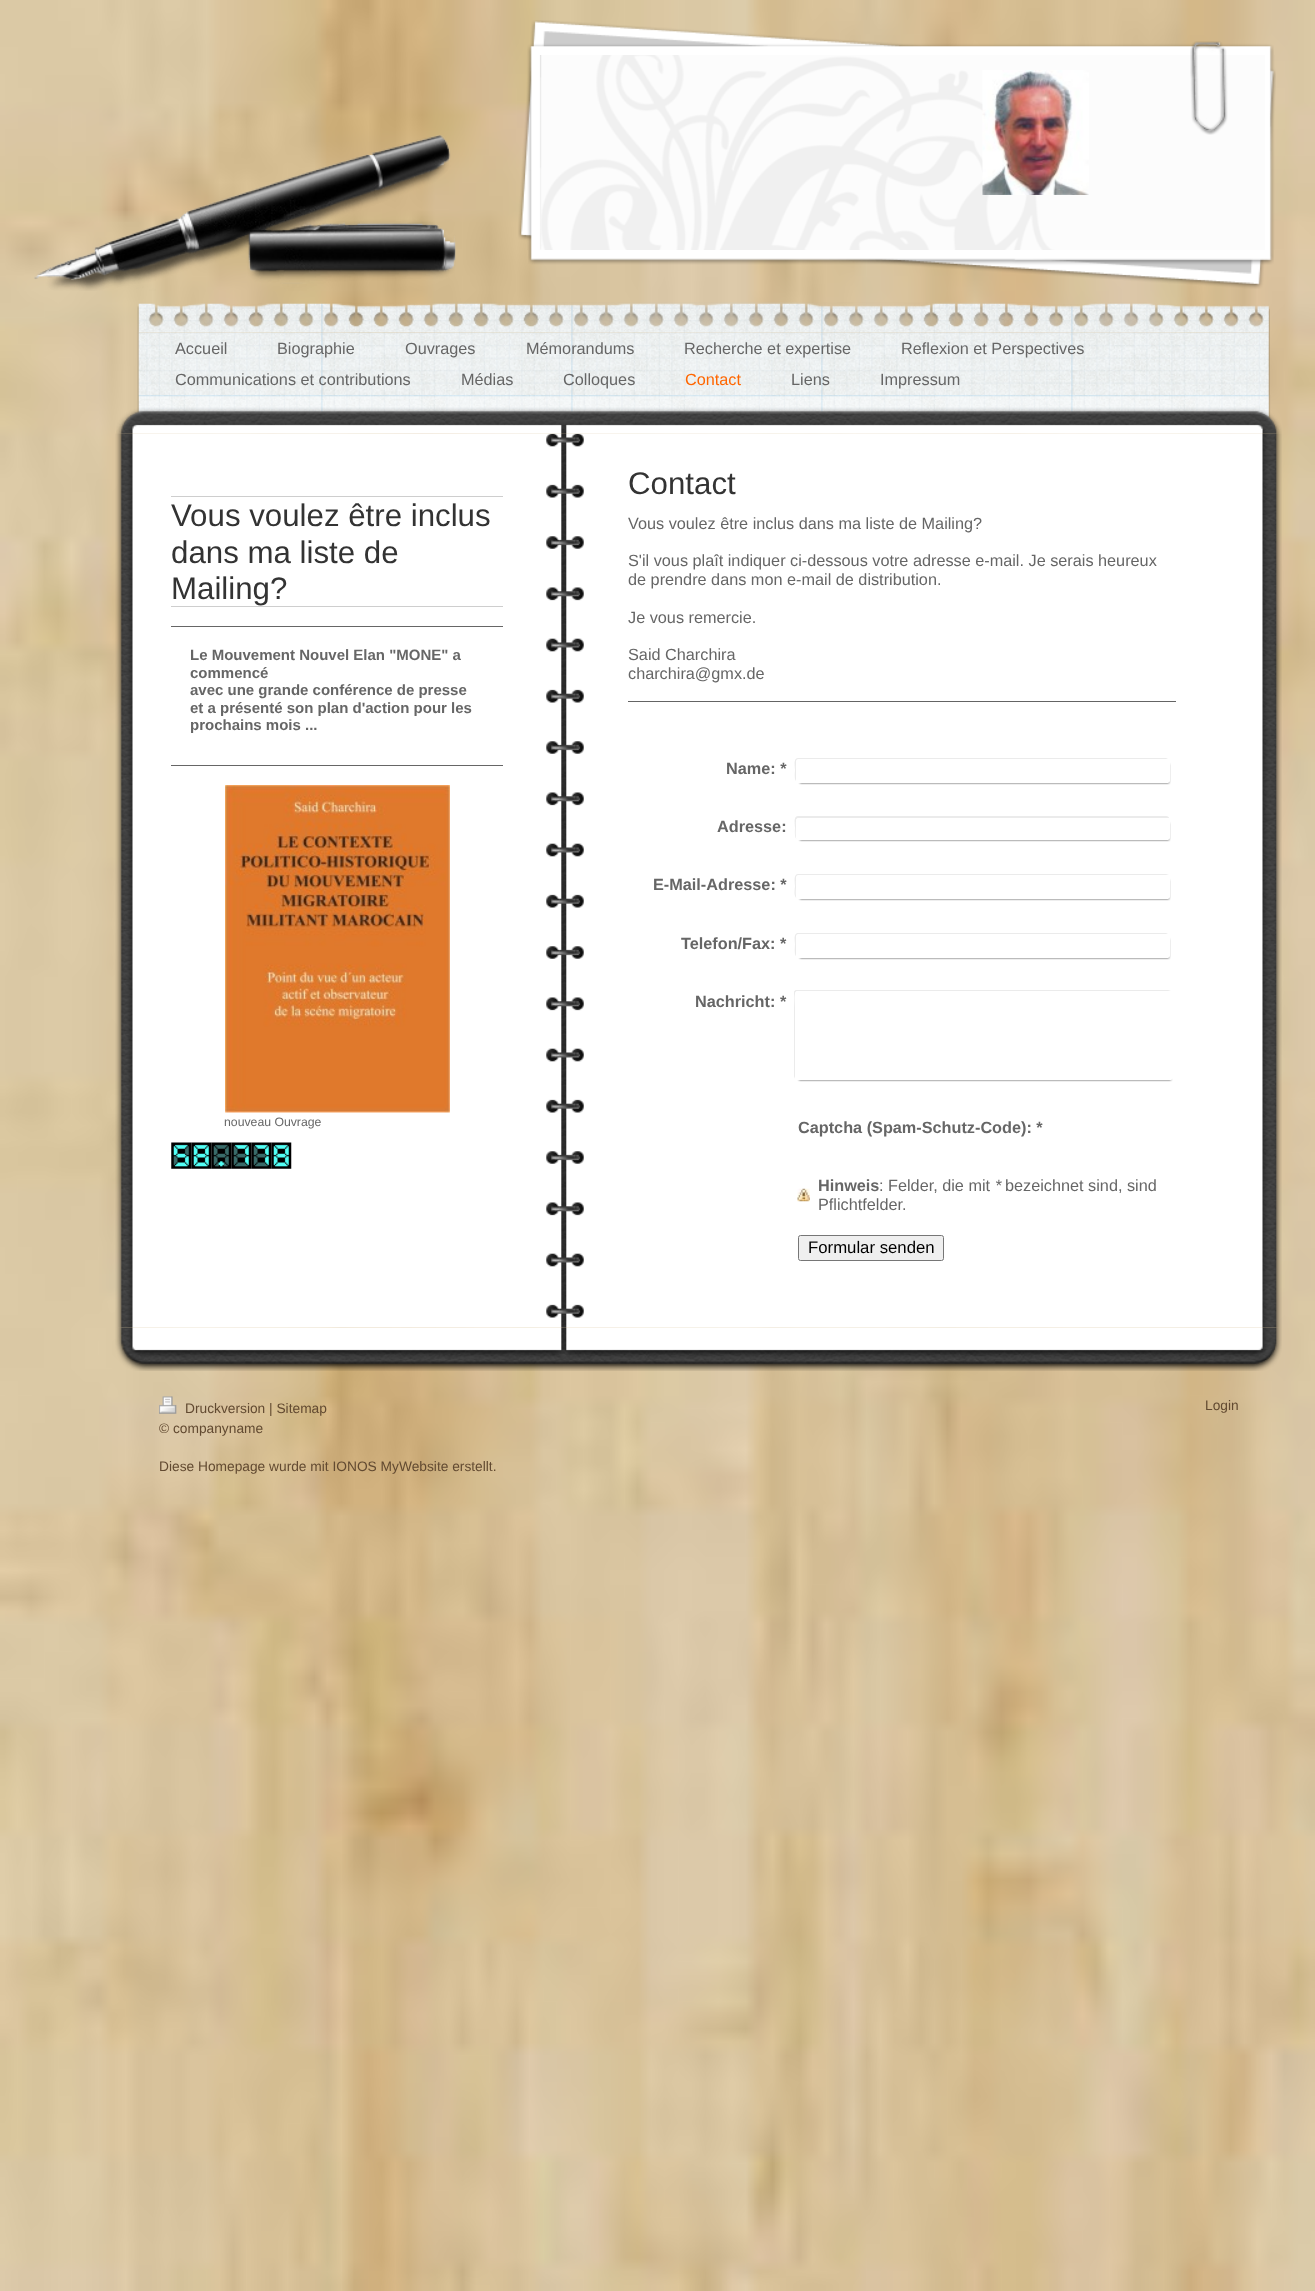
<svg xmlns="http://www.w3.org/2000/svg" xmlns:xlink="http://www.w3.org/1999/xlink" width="1315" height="2291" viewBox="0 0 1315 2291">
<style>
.cls-1{font:16.25px Liberation Sans;fill:#666666}
.cls-2{font:16.25px Liberation Sans;fill:#ff6600}
.cls-3{font:31.25px Liberation Sans;fill:#333333}
.cls-4{font:bold 15px Liberation Sans;fill:#666666}
.cls-5{font:12.25px Liberation Sans;fill:#666666}
.cls-6{font:bold 16.25px Liberation Sans;fill:#666666}
.cls-7{font:italic 16.25px Liberation Sans;fill:#666666}
.cls-8{font:16.75px Liberation Sans;fill:#000000}
.cls-9{font:13.75px Liberation Sans;fill:#624a31}
</style>
<rect width="100%" height="100%" fill="#ffffff"/>
<image xlink:href="image0.png" x="0" y="0" width="1315" height="2291"/>
<image xlink:href="image1.png" x="34" y="135" width="422" height="156"/>
<image xlink:href="image2.png" x="527" y="20" width="747" height="35"/>
<rect fill="#f0f0f0" x="541" y="55" width="724" height="195"/>
<image xlink:href="image5.png" x="541" y="55" width="724" height="195"/>
<image xlink:href="image3.png" x="518" y="55" width="24" height="195"/>
<image xlink:href="image4.png" x="1190" y="41" width="38" height="94"/>
<image xlink:href="image6.png" x="982" y="70" width="107" height="125"/>
<image xlink:href="image7.png" x="1265" y="55" width="11" height="195"/>
<image xlink:href="image8.png" x="528" y="250" width="746" height="39"/>
<image xlink:href="image9.png" x="137" y="302" width="1133" height="31"/>
<image xlink:href="image10.png" x="137" y="332" width="1133" height="63"/>
<image xlink:href="image11.png" x="116" y="395" width="1166" height="39"/>
<image xlink:href="image12.png" x="115" y="433" width="1167" height="895"/>
<rect fill="#cecece" x="171" y="496" width="332" height="1"/>
<rect fill="#cecece" x="171" y="606" width="332" height="1"/>
<rect fill="#666666" x="171" y="626" width="332" height="1"/>
<rect fill="#666666" x="171" y="765" width="332" height="1"/>
<image xlink:href="image13.png" x="225" y="785" width="225" height="328"/>
<image xlink:href="image14.png" x="171" y="1142" width="21" height="27"/>
<image xlink:href="image15.png" x="191" y="1142" width="21" height="27"/>
<image xlink:href="image16.png" x="211" y="1142" width="21" height="27"/>
<image xlink:href="image17.png" x="231" y="1142" width="21" height="27"/>
<image xlink:href="image17.png" x="251" y="1142" width="21" height="27"/>
<image xlink:href="image15.png" x="271" y="1142" width="21" height="27"/>
<rect fill="#646464" x="628" y="701" width="548" height="1"/>
<path fill="#ebebeb" d="M798 758C793 758 795 767 795 770C795 772 794 779 796 781V771C796 768 795 759 799 759H1168L1166 758Z"/>
<rect fill="#000000" fill-opacity="0.8" filter="blur(1px)" x="800" y="764" width="369" height="19"/>
<rect fill="#ffffff" x="796" y="759" width="374" height="24" rx="2.5"/>
<path fill="#ebebeb" d="M798 816C793 816 795 825 795 828C795 830 794 838 797 839C795 837 796 829 796 826C796 824 795 818 799 818H1168H1169C1169 817 1168 816 1166 816Z"/>
<rect fill="#000000" fill-opacity="0.8" filter="blur(1px)" x="800" y="823" width="369" height="17"/>
<rect fill="#ffffff" x="796" y="818" width="374" height="22" rx="2.5"/>
<path fill="#ebebeb" d="M798 874C793 874 795 884 795 886C795 888 793 897 797 898C795 896 796 889 796 887C796 885 795 875 799 875H1169C1168 875 1167 874 1166 874Z"/>
<rect fill="#000000" fill-opacity="0.8" filter="blur(1px)" x="800" y="880" width="369" height="19"/>
<rect fill="#ffffff" x="796" y="875" width="374" height="24" rx="2.5"/>
<path fill="#ebebeb" d="M798 933C793 933 795 942 795 944C795 947 794 954 796 956V946C796 943 795 934 799 934H1168L1166 933Z"/>
<rect fill="#000000" fill-opacity="0.8" filter="blur(1px)" x="800" y="939" width="369" height="19"/>
<rect fill="#ffffff" x="796" y="934" width="374" height="24" rx="2.5"/>
<path fill="#ebebeb" d="M796 990C795 990 794 991 794 992V1076C794 1077 795 1078 795 1079V1008C795 1002 793 991 798 991H1171C1170 991 1169 990 1168 990Z"/>
<rect fill="#000000" fill-opacity="0.8" filter="blur(1px)" x="799" y="996" width="372" height="84"/>
<rect fill="#ffffff" x="795" y="991" width="378" height="89" rx="2.5"/>
<image xlink:href="image18.png" x="797" y="1188" width="13" height="14"/>
<rect fill="#efefef" stroke="#767676" x="798.5" y="1235.5" width="145" height="25" rx="2"/>
<image xlink:href="image19.png" x="115" y="1327" width="1167" height="44"/>
<image xlink:href="image20.png" x="159" y="1396" width="18" height="18"/>
<text class="cls-1" x="175" y="354">Accueil</text>
<text class="cls-1" x="277" y="354">Biographie</text>
<text class="cls-1" x="405" y="354">Ouvrages</text>
<text class="cls-1" x="526" y="354">Mémorandums</text>
<text class="cls-1" x="684" y="354">Recherche et expertise</text>
<text class="cls-1" x="901" y="354">Reflexion et Perspectives</text>
<text class="cls-1" x="175" y="385">Communications et contributions</text>
<text class="cls-1" x="461" y="385">Médias</text>
<text class="cls-1" x="563" y="385">Colloques</text>
<text class="cls-2" x="685" y="385">Contact</text>
<text class="cls-1" x="791" y="385">Liens</text>
<text class="cls-1" x="880" y="385">Impressum</text>
<text class="cls-3"><tspan x="171" y="526">Vous voulez être inclus</tspan><tspan x="171" y="563">dans ma liste de</tspan><tspan x="171" y="599">Mailing?</tspan></text>
<text class="cls-4"><tspan x="190" y="660">Le Mouvement Nouvel Elan "MONE" a</tspan><tspan x="190" y="678">commencé</tspan><tspan x="190" y="695">avec une grande conférence de presse</tspan><tspan x="190" y="713">et a présenté son plan d'action pour les</tspan><tspan x="190" y="730">prochains mois ...</tspan></text>
<text class="cls-5" x="224" y="1126">nouveau Ouvrage</text>
<text class="cls-3" x="628" y="494">Contact</text>
<text class="cls-1" x="628" y="529">Vous voulez être inclus dans ma liste de Mailing?</text>
<text class="cls-1"><tspan x="628" y="566">S'il vous plaît indiquer ci-dessous votre adresse e-mail. Je serais heureux</tspan><tspan x="628" y="585">de prendre dans mon e-mail de distribution.</tspan></text>
<text class="cls-1" x="628" y="623">Je vous remercie.</text>
<text class="cls-1"><tspan x="628" y="660">Said Charchira</tspan><tspan x="628" y="679">charchira@gmx.de</tspan></text>
<text class="cls-6" x="726" y="774">Name: *</text>
<text class="cls-6" x="717" y="832">Adresse:</text>
<text class="cls-6" x="653" y="890">E-Mail-Adresse: *</text>
<text class="cls-6" x="681" y="949">Telefon/Fax: *</text>
<text class="cls-6" x="695" y="1007">Nachricht: *</text>
<text class="cls-6" x="798" y="1133">Captcha (Spam-Schutz-Code): *</text>
<text class="cls-6" x="818" y="1191">Hinweis</text>
<text class="cls-1" x="879" y="1191">: Felder, die mit</text>
<text class="cls-7" x="995" y="1191">*</text>
<text class="cls-1" x="1005" y="1191">bezeichnet sind, sind</text>
<text class="cls-1" x="818" y="1210">Pflichtfelder.</text>
<text class="cls-8" x="808" y="1253">Formular senden</text>
<text class="cls-9" x="185" y="1413">Druckversion | Sitemap</text>
<text class="cls-9" x="159" y="1433">© companyname</text>
<text class="cls-9" x="159" y="1471">Diese Homepage wurde mit IONOS MyWebsite erstellt.</text>
<text class="cls-9" x="1205" y="1410">Login</text>
</svg>
